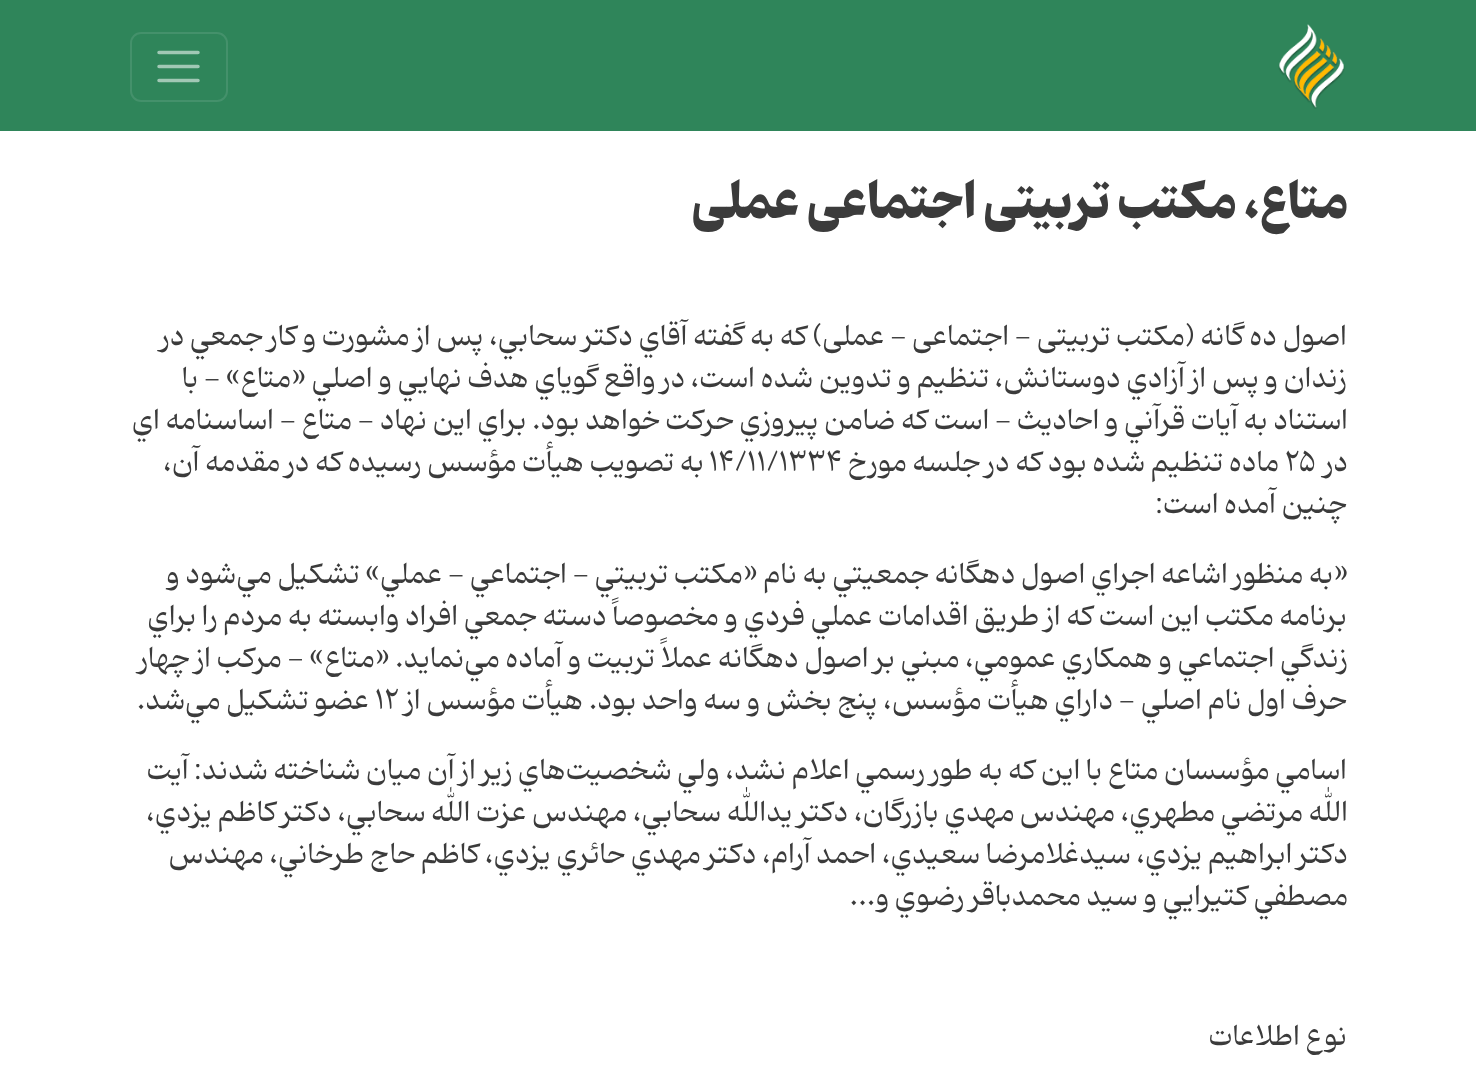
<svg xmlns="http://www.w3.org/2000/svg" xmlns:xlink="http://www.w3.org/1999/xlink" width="1476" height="1083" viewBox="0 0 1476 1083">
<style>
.cls-1{font:bold 47.6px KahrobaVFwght;direction:rtl;fill:#3b3b3b}
.cls-2{font:28px KahrobaVFwght;direction:rtl;fill:#3b3b3b}
.cls-3{font:28px KahrobaVFwght;fill:#3b3b3b}
</style>
<rect width="100%" height="100%" fill="#2f855a"/>
<image xlink:href="image0.png" x="1278" y="24" width="67" height="85"/>
<rect fill="none" stroke="#44916b" stroke-width="2" x="131" y="33" width="96" height="68" rx="10"/>
<path fill="none" stroke="#a1c8b5" stroke-width="3.5" stroke-linecap="round" d="M159 52.5H198M159 66.5H198M159 80.5H198"/>
<rect fill="#ffffff" x="0" y="131" width="1476" height="952"/>
<text class="cls-1" x="1348" y="218">متاع، مکتب تربیتی اجتماعی عملی</text>
<text class="cls-2"><tspan x="1347" y="345">اصول ده گانه (مکتب تربیتی - اجتماعی - عملی) که به گفته آقاي دکتر سحابي، پس از مشورت و کار جمعي در</tspan><tspan x="1347" y="387">زندان و پس از آزادي دوستانش، تنظيم و تدوين شده است، در واقع گوياي هدف نهايي و اصلي «متاع» - با</tspan></text>
<text class="cls-2"><tspan x="1348" y="429">استناد به آيات قرآني و احاديث - است که ضامن پيروزي حرکت خواهد بود. براي اين نهاد - متاع - اساسنامه اي</tspan><tspan x="1348" y="471">در</tspan></text>
<text class="cls-3" x="1285" y="471">۲۵</text>
<text class="cls-2" x="1279" y="471">ماده تنظيم شده بود که در جلسه مورخ</text>
<text class="cls-3" x="709" y="471">۱۴/۱۱/۱۳۳۴</text>
<text class="cls-2" x="704" y="471">به تصويب هيأت مؤسس رسيده که در مقدمه آن،</text>
<text class="cls-2" x="1347" y="513">چنين آمده است:</text>
<text class="cls-2" x="1348" y="583">«به منظور اشاعه اجراي اصول دهگانه جمعيتي به نام «مکتب تربيتي - اجتماعي - عملي» تشکيل مي‌شود و</text>
<text class="cls-2" x="1347" y="625">برنامه مکتب اين است که از طريق اقدامات عملي فردي و مخصوصاً دسته جمعي افراد وابسته به مردم را براي</text>
<text class="cls-2" x="1348" y="667">زندگي اجتماعي و همکاري عمومي، مبني بر اصول دهگانه عملاً تربيت و آماده مي‌نمايد. «متاع» - مرکب از چهار</text>
<text class="cls-2" x="1347" y="709">حرف اول نام اصلي - داراي هيأت مؤسس، پنج بخش و سه واحد بود. هيأت مؤسس از</text>
<text class="cls-3" x="375" y="709">۱۲</text>
<text class="cls-2" x="369" y="709">عضو تشکيل مي‌شد.</text>
<text class="cls-2" x="1347" y="779">اسامي مؤسسان متاع با اين که به طور رسمي اعلام نشد، ولي شخصيت‌هاي زير از آن ميان شناخته شدند: آيت</text>
<text class="cls-2"><tspan x="1348" y="821">الله مرتضي مطهري، مهندس مهدي بازرگان، دکتر يدالله سحابي، مهندس عزت الله سحابي، دکتر کاظم يزدي،</tspan><tspan x="1348" y="863">دکتر ابراهيم يزدي، سيدغلامرضا سعيدي، احمد آرام، دکتر مهدي حائري يزدي، کاظم حاج طرخاني، مهندس</tspan><tspan x="1348" y="905">مصطفي کتيرايي و سید محمدباقر رضوي و...</tspan></text>
<text class="cls-2" x="1347" y="1045">نوع اطلاعات</text>
</svg>
